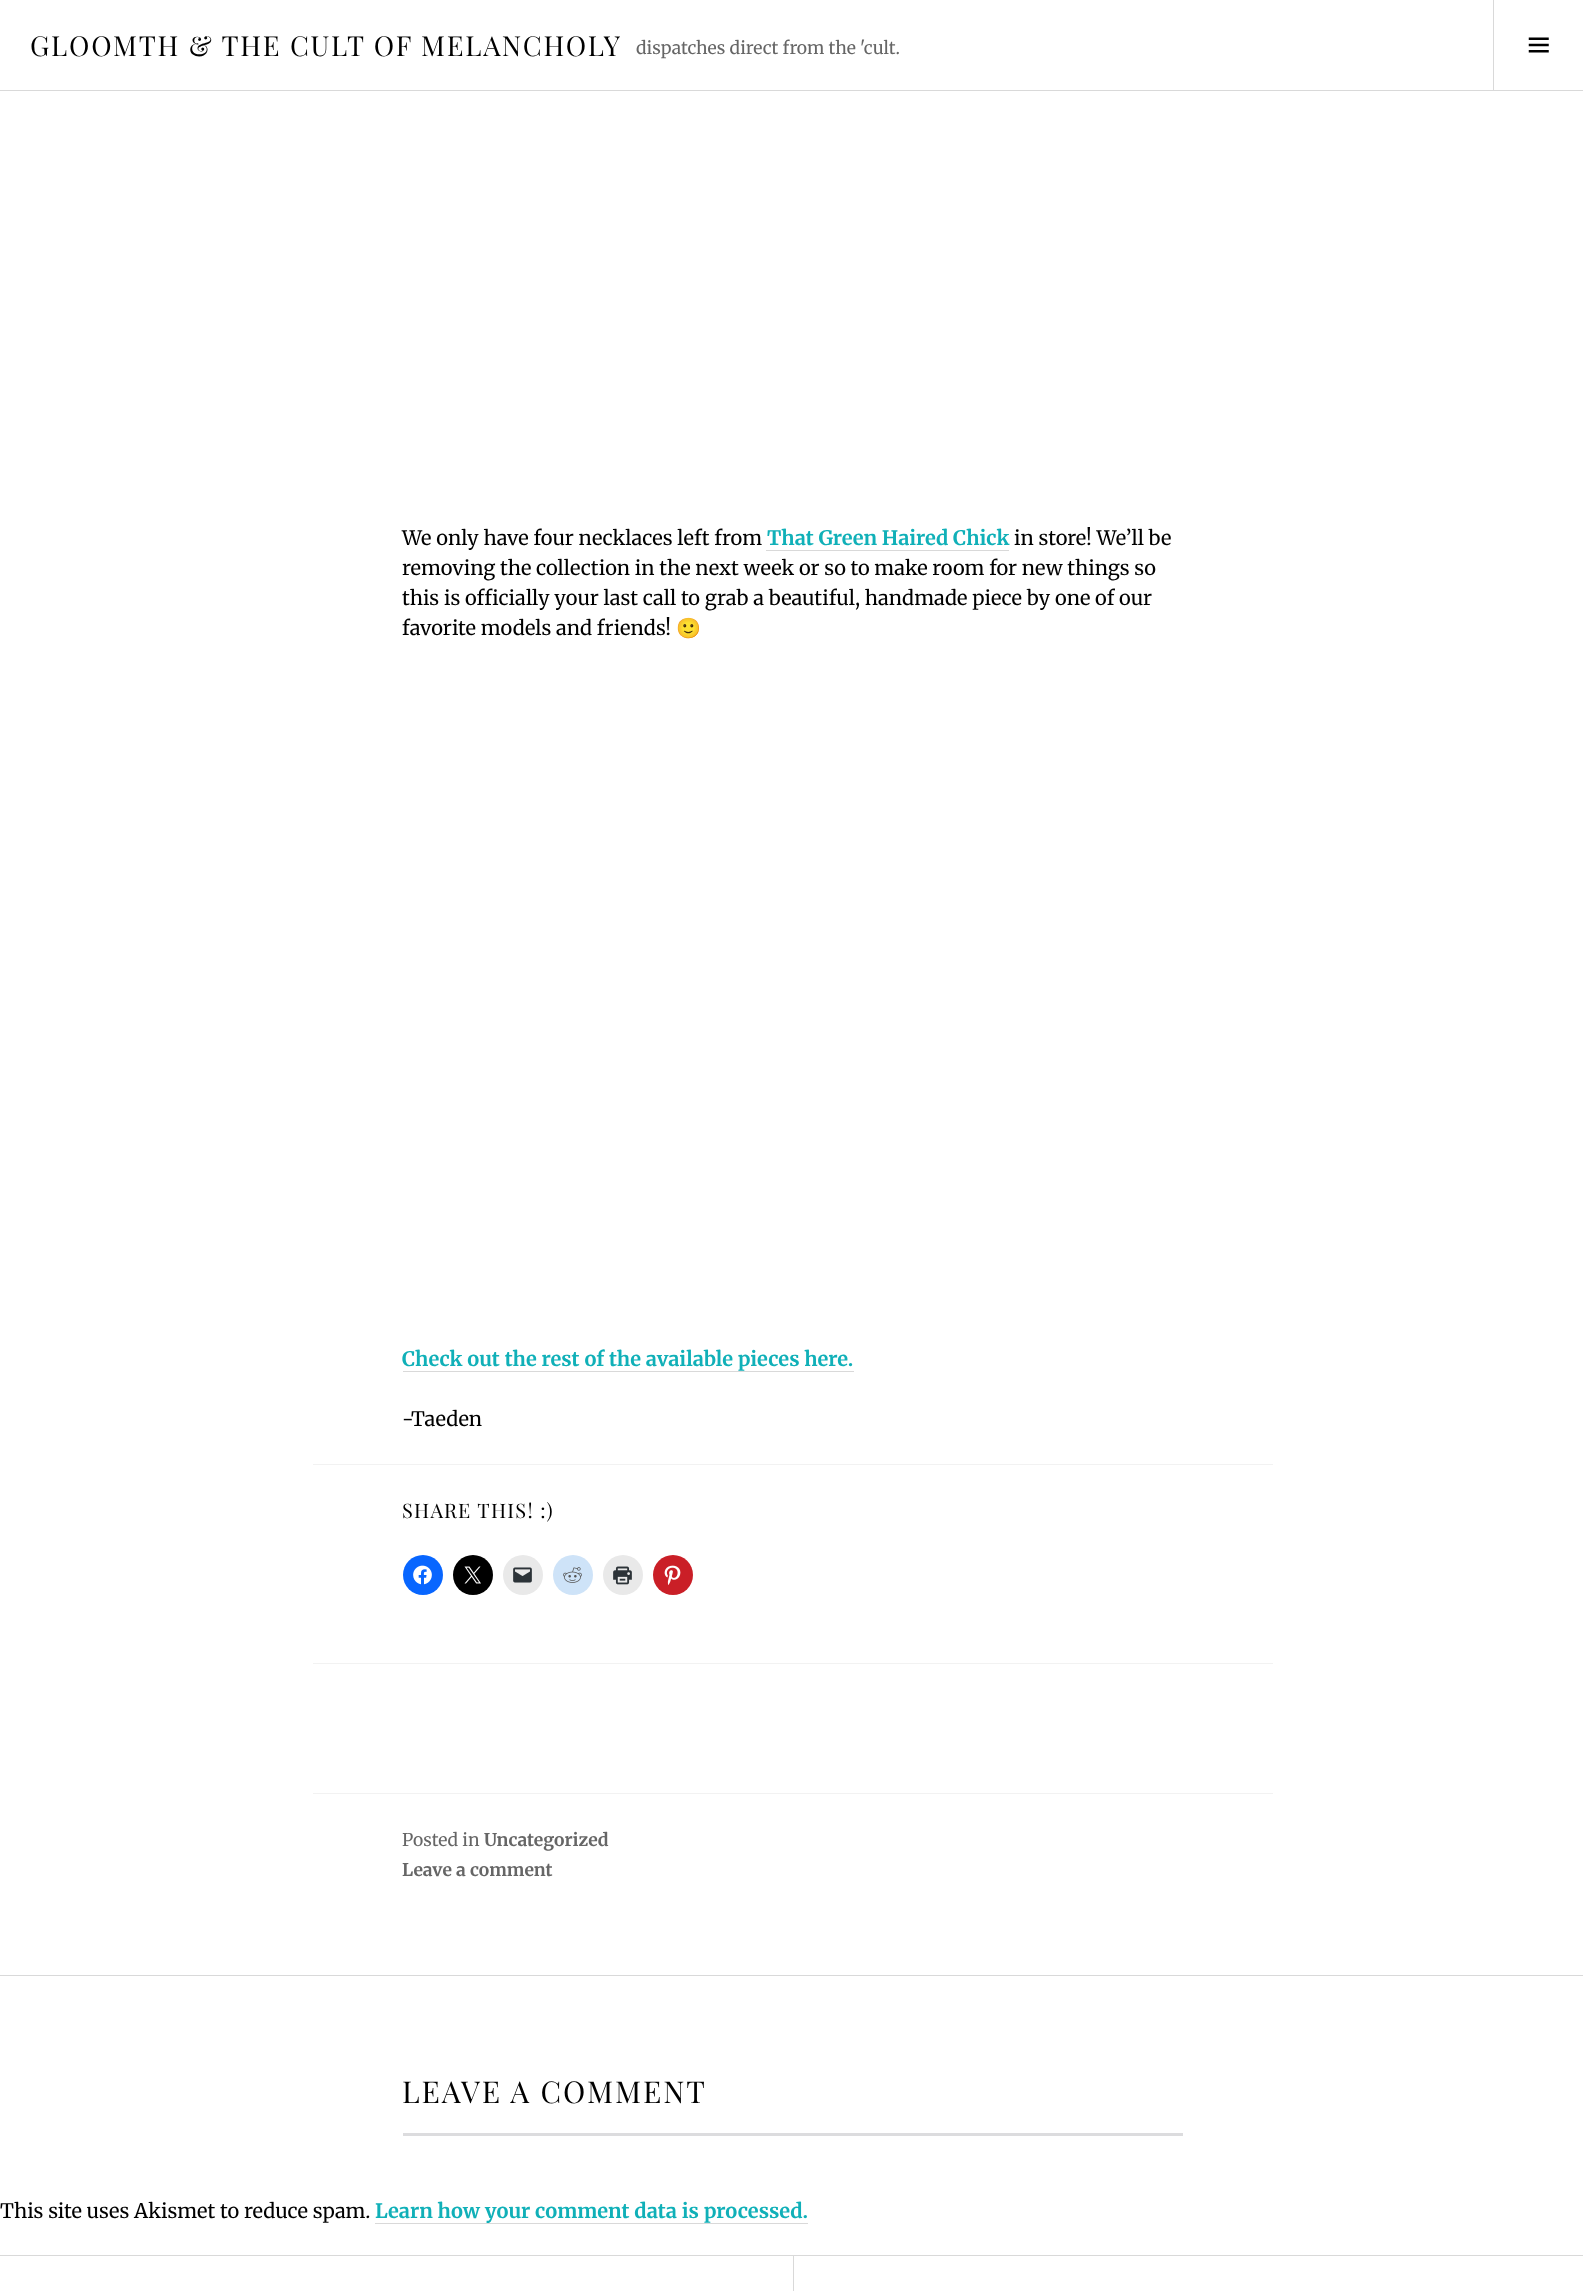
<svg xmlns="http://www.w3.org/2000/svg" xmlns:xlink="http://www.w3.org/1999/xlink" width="1583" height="2291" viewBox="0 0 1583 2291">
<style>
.cls-1{font:27.5px Playfair Display;letter-spacing:1.75px;fill:#000000}
.cls-2{font:17.5px Merriweather;fill:#666666}
.cls-3{font:20px Merriweather;fill:#000000}
.cls-4{font:bold 20px Merriweather;fill:#10b0b8}
.cls-5{font:20px Noto Color Emoji;fill:#000000}
.cls-6{font:20px Playfair Display;letter-spacing:1.25px;fill:#000000}
.cls-7{font:bold 17.5px Merriweather;fill:#666666}
.cls-8{font:30px Playfair Display;letter-spacing:1.9px;fill:#000000}
</style>
<rect width="100%" height="100%" fill="#ffffff"/>
<rect fill="#d9d9d9" x="0" y="90" width="1583" height="1"/>
<rect fill="#d9d9d9" x="1493" y="0" width="1" height="90"/>
<image xlink:href="image0.png" x="1528" y="37" width="21" height="16"/>
<rect fill="#d9d9d9" x="766" y="550" width="243" height="1"/>
<rect fill="#d9d9d9" x="403" y="1371" width="451" height="1"/>
<rect fill="#f2f2f2" x="313" y="1464" width="960" height="1"/>
<circle fill="#0866ff" cx="423" cy="1575" r="20"/>
<image xlink:href="image1.png" x="413" y="1565" width="19" height="20"/>
<circle fill="#000000" cx="473" cy="1575" r="20"/>
<image xlink:href="image2.png" x="464" y="1566" width="17" height="18"/>
<circle fill="#e9e9e9" cx="523" cy="1575" r="20"/>
<image xlink:href="image3.png" x="513" y="1567" width="19" height="16"/>
<circle fill="#cee3f8" cx="573" cy="1575" r="20"/>
<image xlink:href="image4.png" x="563" y="1567" width="19" height="16"/>
<circle fill="#e9e9e9" cx="623" cy="1575" r="20"/>
<image xlink:href="image5.png" x="613" y="1566" width="19" height="19"/>
<circle fill="#ca1f27" cx="673" cy="1575" r="20"/>
<image xlink:href="image6.png" x="664" y="1565" width="17" height="20"/>
<rect fill="#f2f2f2" x="313" y="1663" width="960" height="1"/>
<rect fill="#f2f2f2" x="313" y="1793" width="960" height="1"/>
<rect fill="#d9d9d9" x="0" y="1975" width="1583" height="1"/>
<rect fill="#dcdcde" x="403" y="2133" width="780" height="3"/>
<rect fill="#d9d9d9" x="375" y="2223" width="433" height="1"/>
<rect fill="#d9d9d9" x="0" y="2255" width="1583" height="1"/>
<rect fill="#d9d9d9" x="793" y="2256" width="1" height="35"/>
<text class="cls-1" x="30" y="56">GLOOMTH &amp; THE CULT OF MELANCHOLY</text>
<text class="cls-2" x="636" y="54">dispatches direct from the 'cult.</text>
<text class="cls-3" x="402" y="545">We only have four necklaces left from</text>
<text class="cls-4" x="767" y="545">That Green Haired Chick</text>
<text class="cls-3" x="1014" y="545">in store! We’ll be</text>
<text class="cls-3"><tspan x="402" y="575">removing the collection in the next week or so to make room for new things so</tspan><tspan x="402" y="605">this is officially your last call to grab a beautiful, handmade piece by one of our</tspan><tspan x="402" y="635">favorite models and friends!</tspan></text>
<text class="cls-5" x="676" y="635">🙂</text>
<text class="cls-4" x="402" y="1366">Check out the rest of the available pieces here.</text>
<text class="cls-3" x="402" y="1426">-Taeden</text>
<text class="cls-6" x="402" y="1518">SHARE THIS! :)</text>
<text class="cls-2" x="402" y="1846">Posted in</text>
<text class="cls-7" x="484" y="1846">Uncategorized</text>
<text class="cls-7" x="402" y="1876">Leave a comment</text>
<text class="cls-8" x="402" y="2103">LEAVE A COMMENT</text>
<text class="cls-3" x="0" y="2218">This site uses Akismet to reduce spam.</text>
<text class="cls-4" x="375" y="2218">Learn how your comment data is processed.</text>
</svg>
